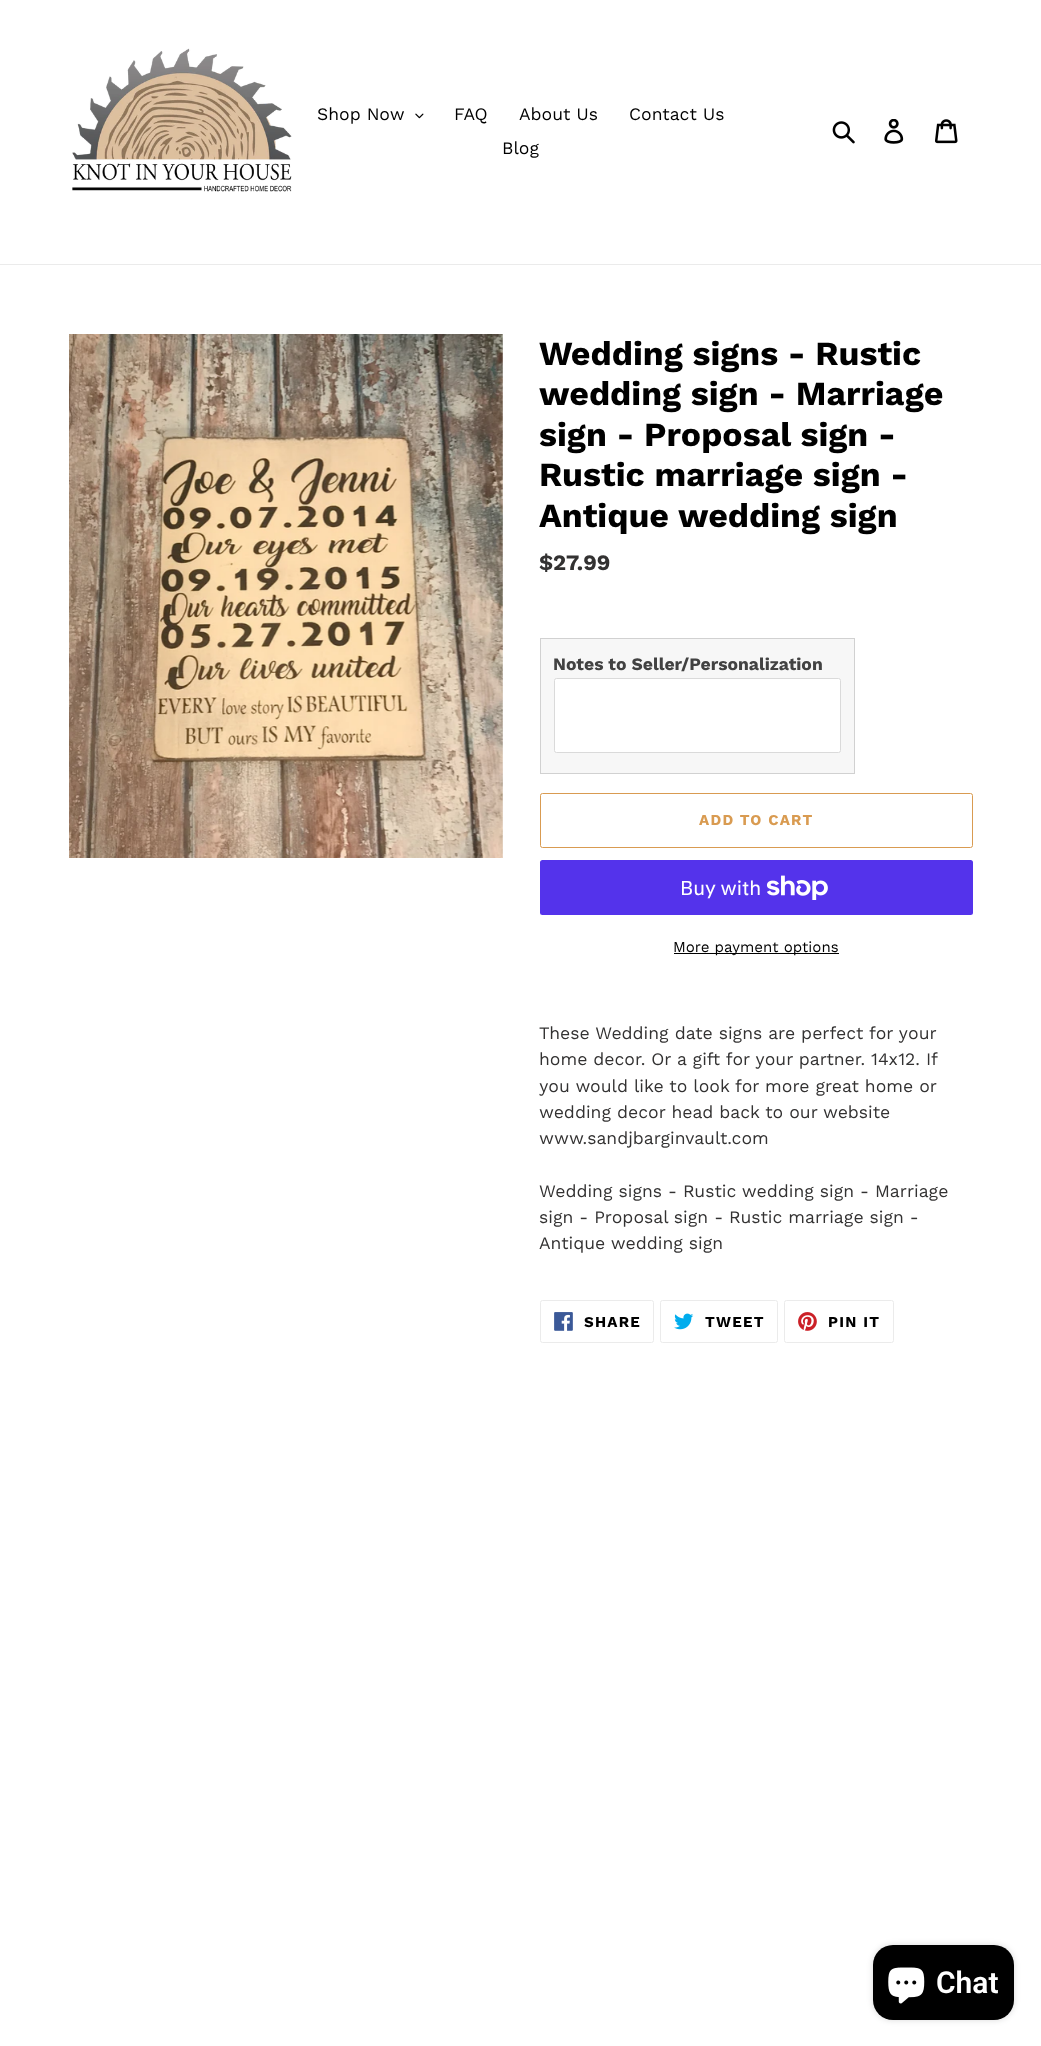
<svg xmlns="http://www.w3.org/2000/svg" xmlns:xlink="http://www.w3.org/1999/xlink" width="1041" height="2046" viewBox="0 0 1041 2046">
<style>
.cls-1{font:17.5px Work Sans;fill:#000000}
.cls-2{font:bold 33.75px Work Sans;fill:#000000}
.cls-3{font:bold 22px Work Sans;fill:#333232}
.cls-4{font:bold 17.5px Work Sans;fill:#424242}
.cls-5{font:bold 15px Work Sans;letter-spacing:1.25px;fill:#d99b51}
.cls-6{font:20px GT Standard;fill:#ffffff}
.cls-7{font:15px Work Sans;fill:#000000}
.cls-8{font:17.5px Work Sans;fill:#333232}
.cls-9{font:bold 15px Work Sans;letter-spacing:1.25px;fill:#000000}
.cls-10{font:600 30px Roboto;fill:#ffffff}
</style>
<rect width="100%" height="100%" fill="#ffffff"/>
<rect fill="#ebebeb" x="0" y="264" width="1041" height="1"/>
<image xlink:href="image0.png" x="72" y="48" width="220" height="144"/>
<image xlink:href="image1.png" x="415" y="113" width="9" height="6"/>
<image xlink:href="image2.png" x="832" y="121" width="23" height="23"/>
<image xlink:href="image3.png" x="884" y="119" width="20" height="25"/>
<image xlink:href="image4.png" x="935" y="119" width="23" height="25"/>
<image xlink:href="image5.png" x="69" y="334" width="434" height="524"/>
<rect fill="#f7f7f7" stroke="#d1d1d1" x="540.5" y="638.5" width="314" height="135"/>
<rect fill="#ffffff" stroke="#dadada" x="554.5" y="678.5" width="286" height="74" rx="2"/>
<rect fill="none" stroke="#d99b51" x="540.5" y="793.5" width="432" height="54" rx="2"/>
<rect fill="#5433eb" x="540" y="860" width="433" height="55" rx="2.5"/>
<image xlink:href="image6.png" x="766" y="875" width="62" height="25"/>
<rect fill="#000000" x="674" y="953" width="165" height="1"/>
<rect fill="none" stroke="#ebebeb" x="540.5" y="1300.5" width="113" height="42" rx="2"/>
<image xlink:href="image7.png" x="554" y="1312" width="19" height="19"/>
<rect fill="none" stroke="#ebebeb" x="660.5" y="1300.5" width="117" height="42" rx="2"/>
<image xlink:href="image8.png" x="674" y="1313" width="20" height="17"/>
<rect fill="none" stroke="#ebebeb" x="784.5" y="1300.5" width="109" height="42" rx="2"/>
<image xlink:href="image9.png" x="798" y="1312" width="19" height="19"/>
<rect fill="#000000" fill-opacity="0.15" filter="blur(3px)" x="873" y="1945" width="141" height="75" rx="20"/>
<rect fill="#000000" x="873" y="1945" width="141" height="75" rx="20"/>
<image xlink:href="image10.png" x="888" y="1967" width="37" height="37"/>
<text class="cls-1" x="317" y="120">Shop Now</text>
<text class="cls-1" x="454" y="120">FAQ</text>
<text class="cls-1" x="519" y="120">About Us</text>
<text class="cls-1" x="629" y="120">Contact Us</text>
<text class="cls-1" x="502" y="154">Blog</text>
<text class="cls-2"><tspan x="539" y="365">Wedding signs - Rustic</tspan><tspan x="539" y="405">wedding sign - Marriage</tspan><tspan x="539" y="446">sign - Proposal sign -</tspan><tspan x="539" y="486">Rustic marriage sign -</tspan><tspan x="539" y="527">Antique wedding sign</tspan></text>
<text class="cls-3" x="539" y="570">$27.99</text>
<text class="cls-4" x="553" y="670">Notes to Seller/Personalization</text>
<text class="cls-5" x="699" y="825">ADD TO CART</text>
<text class="cls-6" x="680" y="895">Buy with</text>
<text class="cls-7" x="673" y="952">More payment options</text>
<text class="cls-8"><tspan x="539" y="1039">These Wedding date signs are perfect for your</tspan><tspan x="539" y="1065">home decor. Or a gift for your partner. 14x12. If</tspan><tspan x="539" y="1092">you would like to look for more great home or</tspan><tspan x="539" y="1118">wedding decor head back to our website</tspan><tspan x="539" y="1144">www.sandjbarginvault.com</tspan></text>
<text class="cls-8"><tspan x="539" y="1197">Wedding signs - Rustic wedding sign - Marriage</tspan><tspan x="539" y="1223">sign - Proposal sign - Rustic marriage sign -</tspan><tspan x="539" y="1249">Antique wedding sign</tspan></text>
<text class="cls-9" x="584" y="1327">SHARE</text>
<text class="cls-9" x="705" y="1327">TWEET</text>
<text class="cls-9" x="828" y="1327">PIN IT</text>
<text class="cls-10" x="936" y="1993">Chat</text>
</svg>
